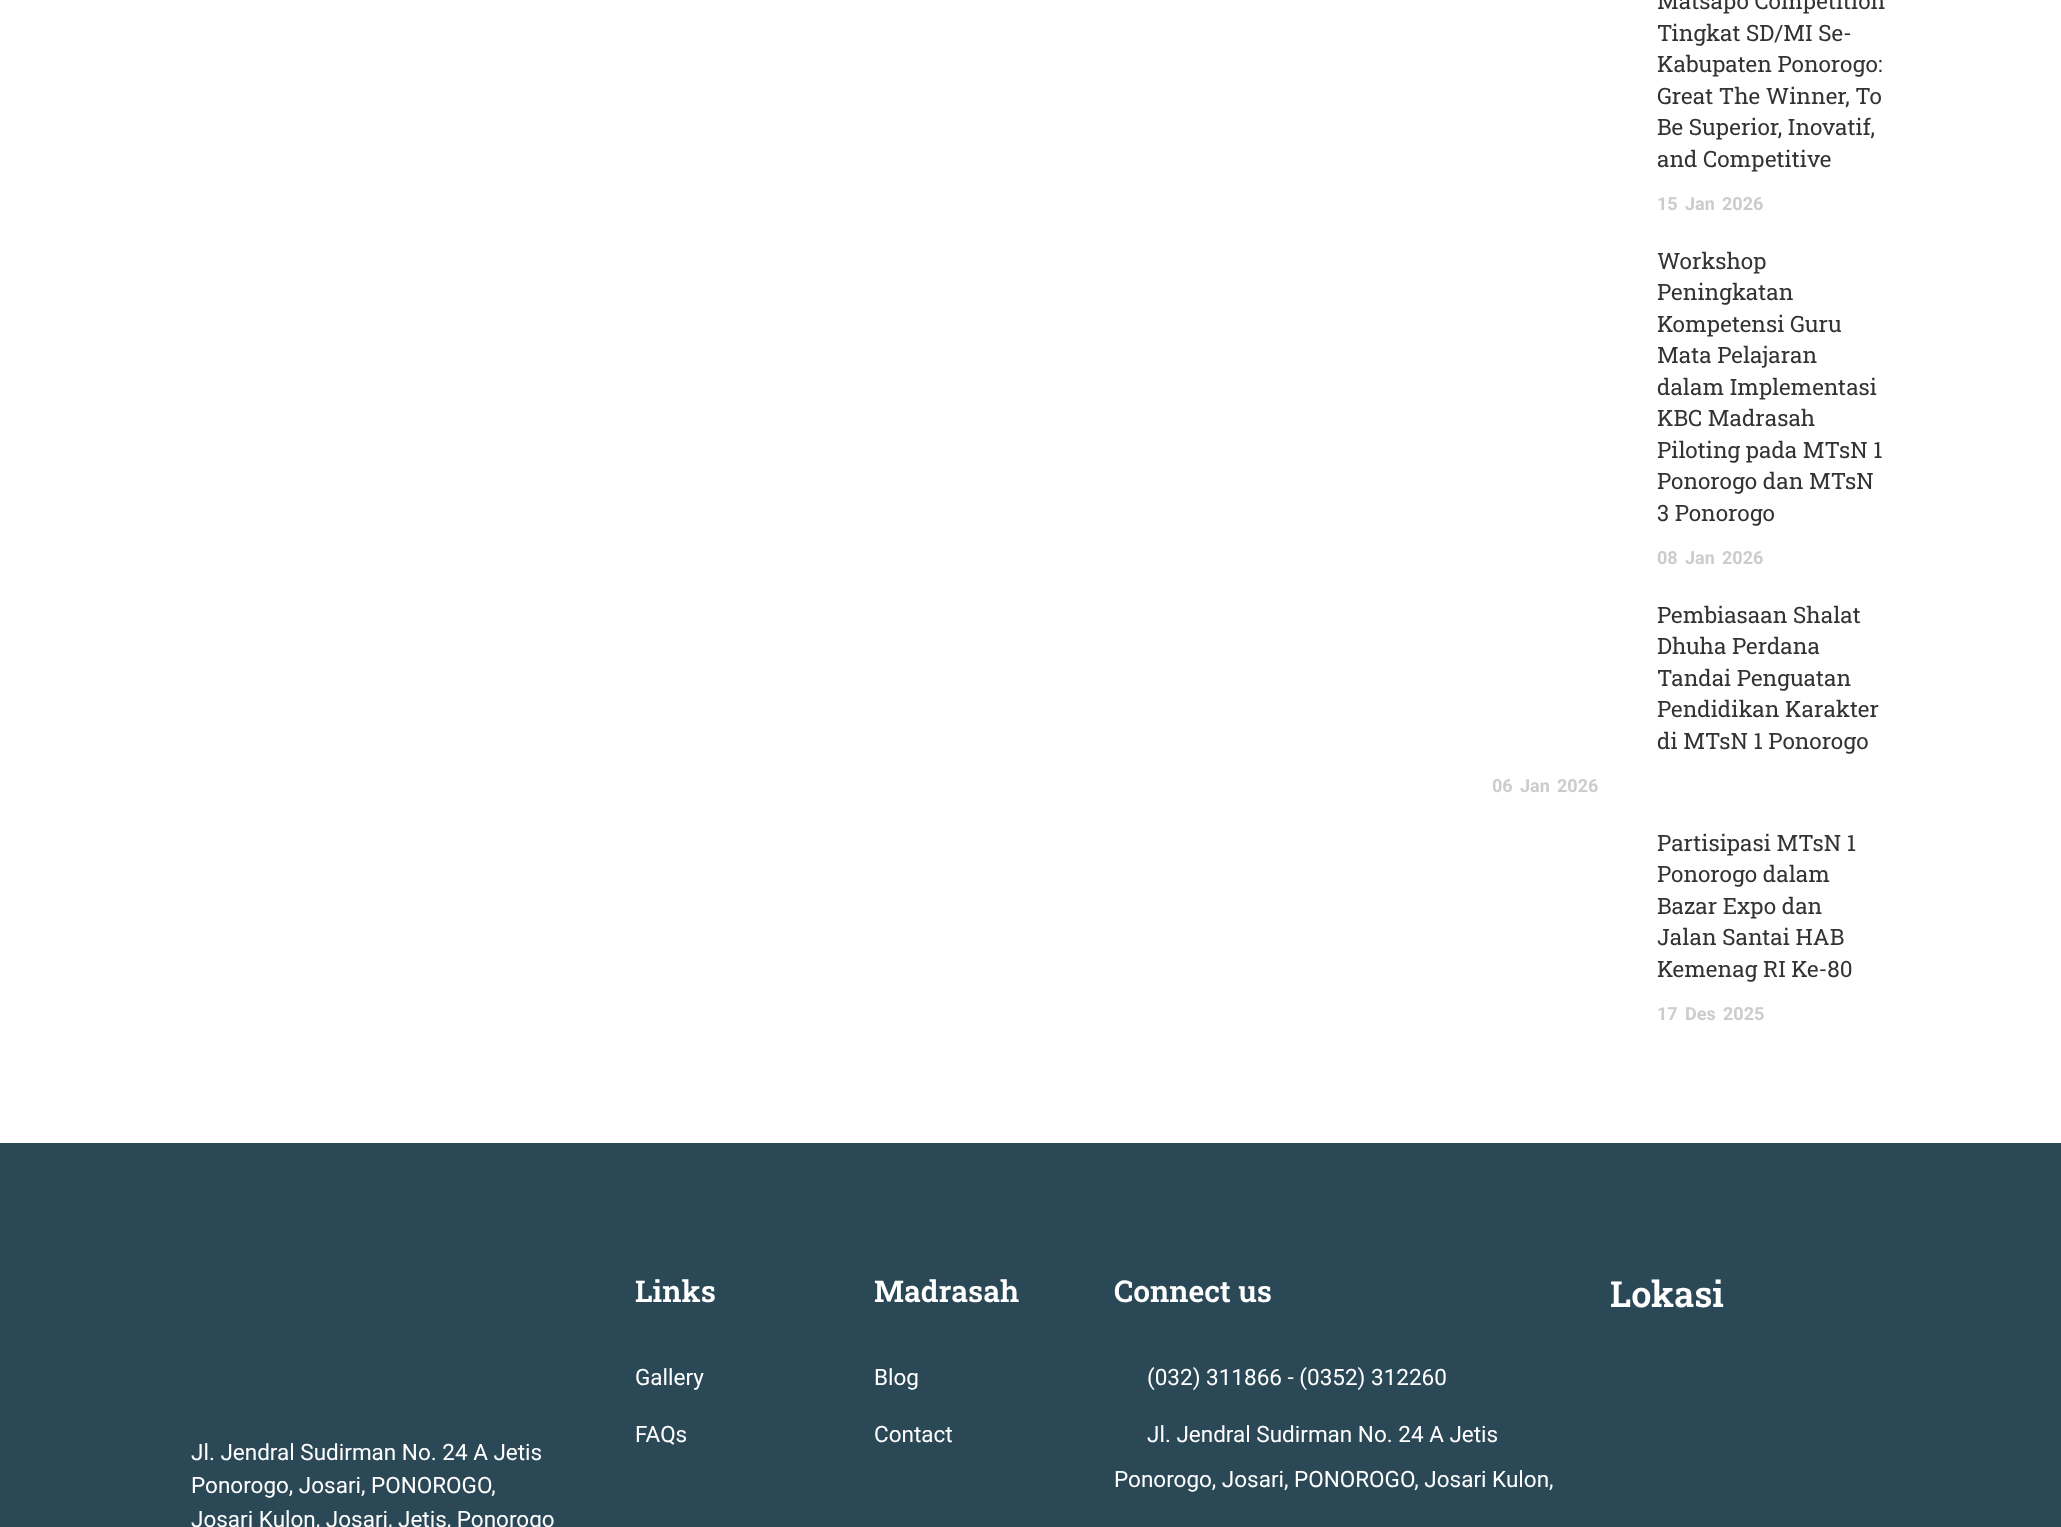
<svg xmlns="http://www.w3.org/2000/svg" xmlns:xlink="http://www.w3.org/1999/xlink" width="2061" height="1527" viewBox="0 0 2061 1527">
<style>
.cls-1{font:22.5px Roboto Slab;fill:#333333}
.cls-2{font:bold 18px Roboto;fill:#cccccc}
.cls-3{font:22.5px Roboto;fill:#ffffff}
.cls-4{font:600 30px Roboto Slab;fill:#ffffff}
.cls-5{font:600 36px Roboto Slab;fill:#ffffff}
</style>
<defs>
<clipPath id="clip1"><rect x="1493" y="605" width="393" height="190"/></clipPath>
</defs>
<rect width="100%" height="100%" fill="#ffffff"/>
<rect fill="#2a4856" x="0" y="1143" width="2061" height="384"/>
<text class="cls-1"><tspan x="1657" y="9">Matsapo Competition</tspan><tspan x="1657" y="41">Tingkat SD/MI Se-</tspan><tspan x="1657" y="72">Kabupaten Ponorogo:</tspan><tspan x="1657" y="104">Great The Winner, To</tspan><tspan x="1657" y="135">Be Superior, Inovatif,</tspan><tspan x="1657" y="167">and Competitive</tspan></text>
<text class="cls-2" x="1657" y="210">15</text>
<text class="cls-2" x="1685" y="210">Jan</text>
<text class="cls-2" x="1722" y="210">2026</text>
<text class="cls-1"><tspan x="1657" y="269">Workshop</tspan><tspan x="1657" y="300">Peningkatan</tspan><tspan x="1657" y="332">Kompetensi Guru</tspan><tspan x="1657" y="363">Mata Pelajaran</tspan><tspan x="1657" y="395">dalam Implementasi</tspan><tspan x="1657" y="426">KBC Madrasah</tspan><tspan x="1657" y="458">Piloting pada MTsN 1</tspan><tspan x="1657" y="489">Ponorogo dan MTsN</tspan><tspan x="1657" y="521">3 Ponorogo</tspan></text>
<text class="cls-2" x="1657" y="564">08</text>
<text class="cls-2" x="1685" y="564">Jan</text>
<text class="cls-2" x="1722" y="564">2026</text>
<text class="cls-1"><tspan x="1657" y="623">Pembiasaan Shalat</tspan><tspan x="1657" y="654">Dhuha Perdana</tspan><tspan x="1657" y="686">Tandai Penguatan</tspan><tspan x="1657" y="717">Pendidikan Karakter</tspan><tspan x="1657" y="749">di MTsN 1 Ponorogo</tspan></text>
<g clip-path="url(#clip1)">
<text class="cls-2" x="1492" y="792">06</text>
</g>
<text class="cls-2" x="1520" y="792">Jan</text>
<text class="cls-2" x="1557" y="792">2026</text>
<text class="cls-1"><tspan x="1657" y="851">Partisipasi MTsN 1</tspan><tspan x="1657" y="882">Ponorogo dalam</tspan><tspan x="1657" y="914">Bazar Expo dan</tspan><tspan x="1657" y="945">Jalan Santai HAB</tspan><tspan x="1657" y="977">Kemenag RI Ke-80</tspan></text>
<text class="cls-2" x="1657" y="1020">17</text>
<text class="cls-2" x="1685" y="1020">Des</text>
<text class="cls-2" x="1723" y="1020">2025</text>
<text class="cls-3"><tspan x="191" y="1460">Jl. Jendral Sudirman No. 24 A Jetis</tspan><tspan x="191" y="1493">Ponorogo, Josari, PONOROGO,</tspan><tspan x="191" y="1527">Josari Kulon, Josari, Jetis, Ponorogo</tspan></text>
<text class="cls-4" x="635" y="1302">Links</text>
<text class="cls-3" x="635" y="1385">Gallery</text>
<text class="cls-3" x="635" y="1442">FAQs</text>
<text class="cls-4" x="874" y="1302">Madrasah</text>
<text class="cls-3" x="874" y="1385">Blog</text>
<text class="cls-3" x="874" y="1442">Contact</text>
<text class="cls-4" x="1114" y="1302">Connect us</text>
<text class="cls-3" x="1147" y="1385">(032) 311866 - (0352) 312260</text>
<text class="cls-3" x="1147" y="1442">Jl. Jendral Sudirman No. 24 A Jetis</text>
<text class="cls-3" x="1114" y="1487">Ponorogo, Josari, PONOROGO, Josari Kulon,</text>
<text class="cls-5" x="1610" y="1307">Lokasi</text>
</svg>
